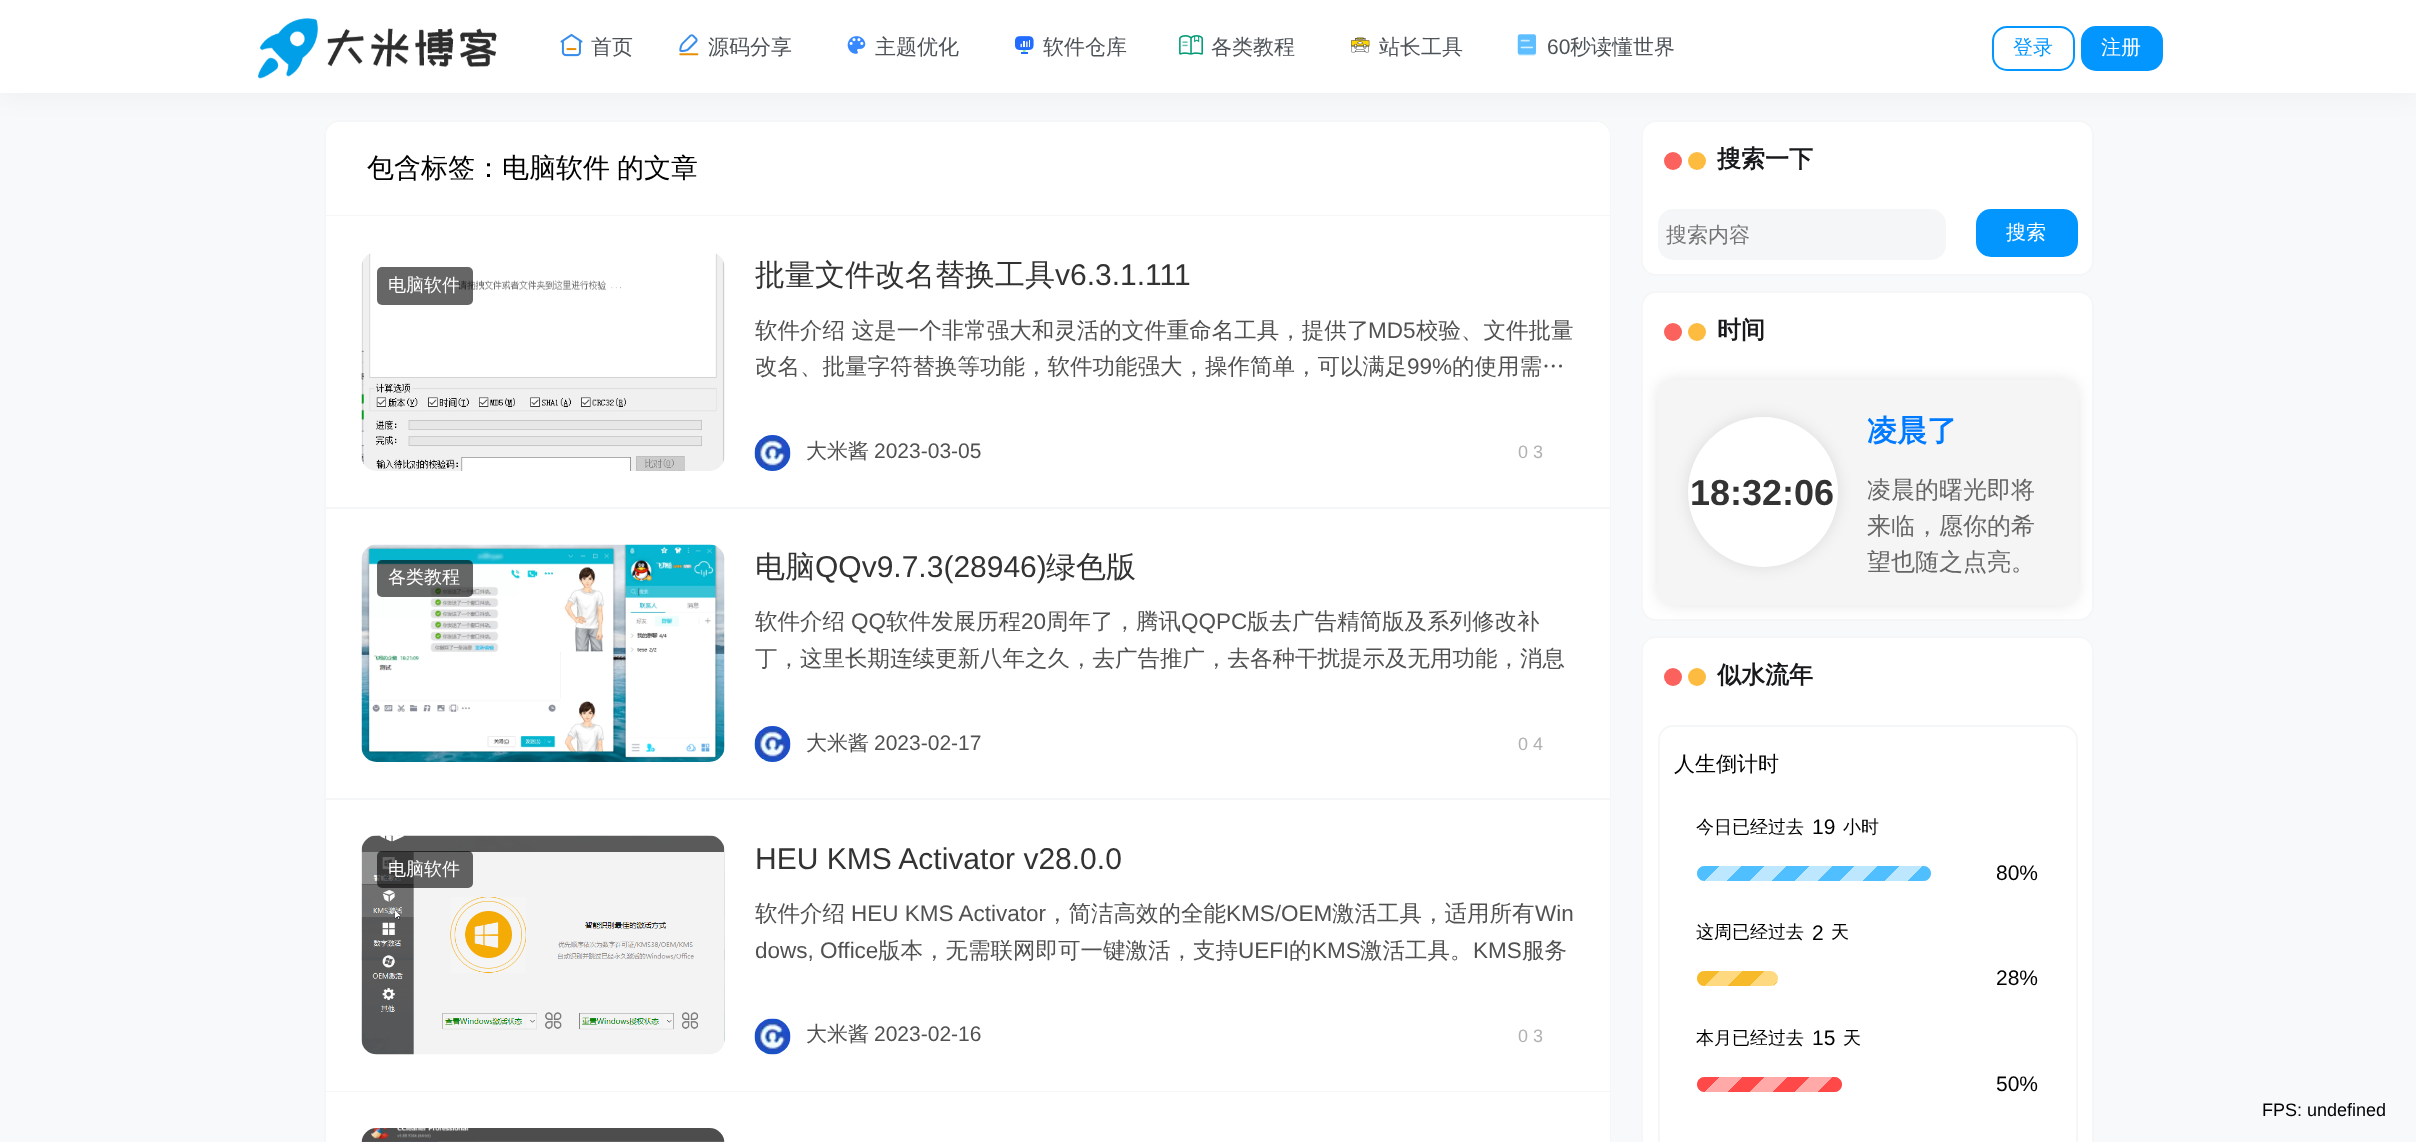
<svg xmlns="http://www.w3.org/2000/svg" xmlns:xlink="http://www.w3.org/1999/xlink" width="2416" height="1142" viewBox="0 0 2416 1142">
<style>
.cls-1{font:500 21px WenQuanYi Zen Hei;fill:#4e5358}
.cls-2{font:21px Liberation Sans;fill:#4e5358}
.cls-3{font:500 20px WenQuanYi Zen Hei;fill:#0396ff}
.cls-4{font:500 20px WenQuanYi Zen Hei;fill:#ffffff}
.cls-5{font:500 27px WenQuanYi Zen Hei;fill:#000000}
.cls-6{font:500 18px WenQuanYi Zen Hei;fill:#ffffff}
.cls-7{font:500 30px WenQuanYi Zen Hei;fill:#333333}
.cls-8{font:30px Liberation Sans;fill:#333333}
.cls-9{font:500 22.5px WenQuanYi Zen Hei;fill:#515151}
.cls-10{font:22.5px Liberation Sans;fill:#515151}
.cls-11{font:500 21px WenQuanYi Zen Hei;fill:#515151}
.cls-12{font:21px Liberation Sans;fill:#515151}
.cls-13{font:18px Liberation Sans;fill:#b1b1b1}
.cls-14{font:bold 24px WenQuanYi Zen Hei;fill:#18191a}
.cls-15{font:500 21px WenQuanYi Zen Hei;fill:#757575}
.cls-16{font:bold 36px Liberation Sans;fill:#333333}
.cls-17{font:bold 30px WenQuanYi Zen Hei;fill:#007bff}
.cls-18{font:500 24px WenQuanYi Zen Hei;fill:#666666}
.cls-19{font:500 21px WenQuanYi Zen Hei;fill:#000000}
.cls-20{font:500 18px WenQuanYi Zen Hei;fill:#000000}
.cls-21{font:21px Liberation Sans;fill:#000000}
.cls-22{font:18px Liberation Sans;fill:#000000}
</style>
<defs>
<linearGradient id="g1" gradientUnits="userSpaceOnUse" x1="1697" y1="866" x2="1742" y2="911"><stop offset="0.25" stop-color="#50bfff"/><stop offset="0.25" stop-color="#50bfff" stop-opacity="0"/><stop offset="0.5" stop-color="#50bfff" stop-opacity="0"/><stop offset="0.5" stop-color="#50bfff"/><stop offset="0.75" stop-color="#50bfff"/><stop offset="0.75" stop-color="#50bfff" stop-opacity="0"/><stop offset="1" stop-color="#000000" stop-opacity="0"/></linearGradient>
<linearGradient id="g2" gradientUnits="userSpaceOnUse" x1="1742" y1="866" x2="1787" y2="911"><stop offset="0.25" stop-color="#50bfff"/><stop offset="0.25" stop-color="#bde6ff"/><stop offset="0.5" stop-color="#bde6ff"/><stop offset="0.5" stop-color="#50bfff"/><stop offset="0.75" stop-color="#50bfff"/><stop offset="0.75" stop-color="#bde6ff"/><stop offset="1" stop-color="#bde6ff"/></linearGradient>
<linearGradient id="g3" gradientUnits="userSpaceOnUse" x1="1787" y1="866" x2="1832" y2="911"><stop offset="0.25" stop-color="#50bfff"/><stop offset="0.25" stop-color="#bde6ff"/><stop offset="0.5" stop-color="#bde6ff"/><stop offset="0.5" stop-color="#50bfff"/><stop offset="0.75" stop-color="#50bfff"/><stop offset="0.75" stop-color="#bde6ff"/><stop offset="1" stop-color="#bde6ff"/></linearGradient>
<linearGradient id="g4" gradientUnits="userSpaceOnUse" x1="1832" y1="866" x2="1877" y2="911"><stop offset="0.25" stop-color="#50bfff"/><stop offset="0.25" stop-color="#bde6ff"/><stop offset="0.5" stop-color="#bde6ff"/><stop offset="0.5" stop-color="#50bfff"/><stop offset="0.75" stop-color="#50bfff"/><stop offset="0.75" stop-color="#bde6ff"/><stop offset="1" stop-color="#bde6ff"/></linearGradient>
<linearGradient id="g5" gradientUnits="userSpaceOnUse" x1="1877" y1="866" x2="1922" y2="911"><stop offset="0.25" stop-color="#50bfff"/><stop offset="0.25" stop-color="#bde6ff"/><stop offset="0.5" stop-color="#bde6ff"/><stop offset="0.5" stop-color="#50bfff"/><stop offset="0.75" stop-color="#50bfff"/><stop offset="0.75" stop-color="#bde6ff"/><stop offset="1" stop-color="#bde6ff"/></linearGradient>
<linearGradient id="g6" gradientUnits="userSpaceOnUse" x1="1922" y1="866" x2="1967" y2="911"><stop offset="0.25" stop-color="#50bfff"/><stop offset="0.25" stop-color="#50bfff" stop-opacity="0"/><stop offset="0.5" stop-color="#50bfff" stop-opacity="0"/><stop offset="0.5" stop-color="#50bfff"/><stop offset="0.75" stop-color="#50bfff"/><stop offset="0.75" stop-color="#50bfff" stop-opacity="0"/><stop offset="1" stop-color="#000000" stop-opacity="0"/></linearGradient>
<linearGradient id="g7" gradientUnits="userSpaceOnUse" x1="1697" y1="971" x2="1742" y2="1016"><stop offset="0.25" stop-color="#f7ba2a"/><stop offset="0.25" stop-color="#f7ba2a" stop-opacity="0"/><stop offset="0.5" stop-color="#f7ba2a" stop-opacity="0"/><stop offset="0.5" stop-color="#f7ba2a"/><stop offset="0.75" stop-color="#f7ba2a"/><stop offset="0.75" stop-color="#f7ba2a" stop-opacity="0"/><stop offset="1" stop-color="#000000" stop-opacity="0"/></linearGradient>
<linearGradient id="g8" gradientUnits="userSpaceOnUse" x1="1742" y1="971" x2="1787" y2="1016"><stop offset="0.25" stop-color="#f7ba2a"/><stop offset="0.25" stop-color="#f7ba2a" stop-opacity="0"/><stop offset="0.5" stop-color="#f7ba2a" stop-opacity="0"/><stop offset="0.5" stop-color="#f7ba2a"/><stop offset="0.75" stop-color="#f7ba2a"/><stop offset="0.75" stop-color="#f7ba2a" stop-opacity="0"/><stop offset="1" stop-color="#000000" stop-opacity="0"/></linearGradient>
<linearGradient id="g9" gradientUnits="userSpaceOnUse" x1="1697" y1="1077" x2="1742" y2="1122"><stop offset="0.25" stop-color="#ff4949"/><stop offset="0.25" stop-color="#ff4949" stop-opacity="0"/><stop offset="0.5" stop-color="#ff4949" stop-opacity="0"/><stop offset="0.5" stop-color="#ff4949"/><stop offset="0.75" stop-color="#ff4949"/><stop offset="0.75" stop-color="#ff4949" stop-opacity="0"/><stop offset="1" stop-color="#000000" stop-opacity="0"/></linearGradient>
<linearGradient id="g10" gradientUnits="userSpaceOnUse" x1="1742" y1="1077" x2="1787" y2="1122"><stop offset="0.25" stop-color="#ff4949"/><stop offset="0.25" stop-color="#ffa9a9"/><stop offset="0.5" stop-color="#ffa9a9"/><stop offset="0.5" stop-color="#ff4949"/><stop offset="0.75" stop-color="#ff4949"/><stop offset="0.75" stop-color="#ffa9a9"/><stop offset="1" stop-color="#ffa9a9"/></linearGradient>
<linearGradient id="g11" gradientUnits="userSpaceOnUse" x1="1787" y1="1077" x2="1832" y2="1122"><stop offset="0.25" stop-color="#ff4949"/><stop offset="0.25" stop-color="#ffa9a9"/><stop offset="0.5" stop-color="#ffa9a9"/><stop offset="0.5" stop-color="#ff4949"/><stop offset="0.75" stop-color="#ff4949"/><stop offset="0.75" stop-color="#ffa9a9"/><stop offset="1" stop-color="#ffa9a9"/></linearGradient>
<linearGradient id="g12" gradientUnits="userSpaceOnUse" x1="1832" y1="1077" x2="1877" y2="1122"><stop offset="0.25" stop-color="#ff4949"/><stop offset="0.25" stop-color="#ff4949" stop-opacity="0"/><stop offset="0.5" stop-color="#ff4949" stop-opacity="0"/><stop offset="0.5" stop-color="#ff4949"/><stop offset="0.75" stop-color="#ff4949"/><stop offset="0.75" stop-color="#ff4949" stop-opacity="0"/><stop offset="1" stop-color="#000000" stop-opacity="0"/></linearGradient>
<clipPath id="clip1"><rect x="755" y="312" width="819" height="74"/></clipPath>
<clipPath id="clip2"><rect x="755" y="605" width="819" height="72"/></clipPath>
<clipPath id="clip3"><rect x="755" y="896" width="819" height="73"/></clipPath>
</defs>
<rect width="100%" height="100%" fill="#f7f9fa"/>
<path fill="#ffffff" d="M339 120H1596C1604.5 120 1611 126.5 1611 135V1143H324V135C324 126.5 330.5 120 339 120Z"/>
<rect fill="none" stroke="#f5f6f7" stroke-width="2" x="325" y="121" width="1285" height="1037" rx="14"/>
<path fill="#ffffff" d="M340 122H1596C1603.5 122 1610 128.5 1610 136V216H326V136C326 128.5 332.5 122 340 122Z"/>
<rect fill="#ffffff" stroke="#f5f6f7" stroke-width="2" x="1642" y="121" width="451" height="154" rx="14"/>
<rect fill="#000000" fill-opacity="0.05" filter="blur(15px)" x="0" y="0" width="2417" height="93"/>
<rect fill="#ffffff" x="0" y="0" width="2416" height="93"/>
<image xlink:href="image0.png" x="258" y="18" width="239" height="61"/>
<image xlink:href="image1.png" x="560" y="34" width="23" height="23"/>
<image xlink:href="image2.png" x="679" y="34" width="20" height="22"/>
<image xlink:href="image3.png" x="847" y="36" width="19" height="18"/>
<image xlink:href="image4.png" x="1015" y="36" width="19" height="18"/>
<image xlink:href="image5.png" x="1179" y="35" width="24" height="20"/>
<image xlink:href="image6.png" x="1351" y="37" width="19" height="16"/>
<image xlink:href="image7.png" x="1517" y="34" width="19" height="22"/>
<rect fill="none" stroke="#0396ff" stroke-width="2" x="1993" y="27" width="81" height="43" rx="14"/>
<rect fill="#0396ff" stroke="#0396ff" stroke-width="2" x="2082" y="27" width="80" height="43" rx="14"/>
<rect fill="#f5f6f7" x="326" y="215" width="1284" height="1"/>
<rect fill="#ffffff" x="1609" y="216" width="1" height="291"/>
<rect fill="#f5f6f7" x="326" y="507" width="1284" height="2"/>
<image xlink:href="image8.png" x="361" y="253" width="364" height="218"/>
<rect fill="#000000" fill-opacity="0.6" x="377" y="267" width="96" height="38" rx="5"/>
<image xlink:href="image9.png" x="754" y="435" width="37" height="36"/>
<rect fill="#ffffff" x="1609" y="509" width="1" height="289"/>
<rect fill="#f5f6f7" x="326" y="798" width="1284" height="2"/>
<image xlink:href="image10.png" x="361" y="544" width="364" height="218"/>
<rect fill="#000000" fill-opacity="0.6" x="377" y="560" width="96" height="37" rx="5"/>
<image xlink:href="image9.png" x="754" y="726" width="37" height="36"/>
<rect fill="#ffffff" x="1609" y="800" width="1" height="291"/>
<rect fill="#f5f6f7" x="326" y="1091" width="1284" height="1"/>
<image xlink:href="image11.png" x="361" y="835" width="364" height="220"/>
<rect fill="#000000" fill-opacity="0.6" x="377" y="851" width="96" height="37" rx="5"/>
<image xlink:href="image12.png" x="754" y="1018" width="37" height="37"/>
<rect fill="#ffffff" x="1609" y="1092" width="1" height="50"/>
<image xlink:href="image13.png" x="361" y="1128" width="364" height="14"/>
<circle fill="#fc625d" cx="1673" cy="161" r="9"/>
<circle fill="#fdbc40" cx="1697" cy="161" r="9"/>
<rect fill="#f5f6f7" x="1658" y="209" width="288" height="51" rx="15"/>
<rect fill="#0396ff" x="1976" y="209" width="102" height="48" rx="15"/>
<rect fill="#ffffff" stroke="#f5f6f7" stroke-width="2" x="1642" y="292" width="451" height="328" rx="14"/>
<circle fill="#fc625d" cx="1673" cy="332" r="9"/>
<circle fill="#fdbc40" cx="1697" cy="332" r="9"/>
<rect fill="#000000" fill-opacity="0.1" filter="blur(7.5px)" x="1658" y="380" width="420" height="225" rx="15"/>
<rect fill="#f5f5f5" x="1658" y="380" width="420" height="225" rx="15"/>
<rect fill="#000000" fill-opacity="0.1" filter="blur(7.5px)" x="1688" y="417" width="150" height="150" rx="75"/>
<circle fill="#ffffff" cx="1763" cy="492" r="75"/>
<path fill="#ffffff" d="M1656 636H2079C2087.5 636 2094 642.5 2094 651V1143H1641V651C1641 642.5 1647.5 636 1656 636Z"/>
<rect fill="none" stroke="#f5f6f7" stroke-width="2" x="1642" y="637" width="451" height="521" rx="14"/>
<circle fill="#fc625d" cx="1673" cy="677" r="9"/>
<circle fill="#fdbc40" cx="1697" cy="677" r="9"/>
<rect fill="none" stroke="#f5f6f7" stroke-width="2" x="1659" y="726" width="418" height="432" rx="14"/>
<rect fill="#bde6ff" x="1697" y="866" width="234" height="15" rx="7.5"/>
<path fill="url(#g1)" d="M1704.5 866H1742V881H1704.5C1700.5 881 1697 877.5 1697 873.5C1697 869.5 1700.5 866 1704.5 866Z"/>
<rect fill="url(#g2)" x="1742" y="866" width="45" height="15"/>
<rect fill="url(#g3)" x="1787" y="866" width="45" height="15"/>
<rect fill="url(#g4)" x="1832" y="866" width="45" height="15"/>
<rect fill="url(#g5)" x="1877" y="866" width="45" height="15"/>
<path fill="url(#g6)" d="M1922 866H1923.5C1927.5 866 1931 869.5 1931 873.5C1931 877.5 1927.5 881 1923.5 881H1922Z"/>
<rect fill="#ffd980" x="1697" y="971" width="81" height="15" rx="7.5"/>
<path fill="url(#g7)" d="M1704.5 971H1742V986H1704.5C1700.5 986 1697 982.5 1697 978.5C1697 974.5 1700.5 971 1704.5 971Z"/>
<path fill="url(#g8)" d="M1742 971H1770.5C1774.5 971 1778 974.5 1778 978.5C1778 982.5 1774.5 986 1770.5 986H1742Z"/>
<rect fill="#ffa9a9" x="1697" y="1077" width="145" height="15" rx="7.5"/>
<path fill="url(#g9)" d="M1704.5 1077H1742V1092H1704.5C1700.5 1092 1697 1088.5 1697 1084.5C1697 1080.5 1700.5 1077 1704.5 1077Z"/>
<rect fill="url(#g10)" x="1742" y="1077" width="45" height="15"/>
<rect fill="url(#g11)" x="1787" y="1077" width="45" height="15"/>
<path fill="url(#g12)" d="M1832 1077H1834.5C1838.5 1077 1842 1080.5 1842 1084.5C1842 1088.5 1838.5 1092 1834.5 1092H1832Z"/>
<text class="cls-1" x="591" y="54">首页</text>
<text class="cls-1" x="708" y="54">源码分享</text>
<text class="cls-1" x="875" y="54">主题优化</text>
<text class="cls-1" x="1043" y="54">软件仓库</text>
<text class="cls-1" x="1211" y="54">各类教程</text>
<text class="cls-1" x="1379" y="54">站长工具</text>
<text class="cls-2" x="1547" y="54">60</text>
<text class="cls-1" x="1570" y="54">秒读懂世界</text>
<text class="cls-3" x="2013" y="54">登录</text>
<text class="cls-4" x="2101" y="54">注册</text>
<text class="cls-5" x="367" y="177" word-spacing="-1">包含标签：电脑软件 的文章</text>
<text class="cls-6" x="388" y="291">电脑软件</text>
<text class="cls-7" x="755" y="285">批量文件改名替换工具</text>
<text class="cls-8" x="1055" y="285">v6.3.1.111</text>
<g clip-path="url(#clip1)">
<text class="cls-9" x="755" y="338">软件介绍 这是一个非常强大和灵活的文件重命名工具，提供了</text>
</g>
<text class="cls-10" x="1368" y="338">MD5</text>
<text class="cls-9" x="1416" y="338">校验、文件批量</text>
<text class="cls-9" x="755" y="374">改名、批量字符替换等功能，软件功能强大，操作简单，可以满足</text>
<text class="cls-10" x="1407" y="374">99%</text>
<text class="cls-9" x="1452" y="374">的使用需…</text>
<text class="cls-11" x="806" y="458">大米酱</text>
<text class="cls-12" x="874" y="458">2023-03-05</text>
<text class="cls-13" x="1518" y="458">0 3</text>
<text class="cls-6" x="388" y="583">各类教程</text>
<text class="cls-7" x="755" y="577">电脑</text>
<text class="cls-8" x="815" y="577">QQv9.7.3(28946)</text>
<text class="cls-7" x="1046" y="577">绿色版</text>
<g clip-path="url(#clip2)">
<text class="cls-9" x="755" y="629">软件介绍</text>
</g>
<text class="cls-10" x="851" y="629">QQ</text>
<text class="cls-9" x="886" y="629">软件发展历程</text>
<text class="cls-10" x="1021" y="629">20</text>
<text class="cls-9" x="1046" y="629">周年了，腾讯</text>
<text class="cls-10" x="1181" y="629">QQPC</text>
<text class="cls-9" x="1247" y="629">版去广告精简版及系列修改补</text>
<text class="cls-9" x="755" y="666">丁，这里长期连续更新八年之久，去广告推广，去各种干扰提示及无用功能，消息</text>
<text class="cls-11" x="806" y="750">大米酱</text>
<text class="cls-12" x="874" y="750">2023-02-17</text>
<text class="cls-13" x="1518" y="750">0 4</text>
<text class="cls-6" x="388" y="875">电脑软件</text>
<text class="cls-8" x="755" y="869">HEU KMS Activator v28.0.0</text>
<g clip-path="url(#clip3)">
<text class="cls-9" x="755" y="921">软件介绍</text>
</g>
<text class="cls-10" x="851" y="921">HEU KMS Activator</text>
<text class="cls-9" x="1046" y="921">，简洁高效的全能</text>
<text class="cls-10" x="1226" y="921">KMS/OEM</text>
<text class="cls-9" x="1332" y="921">激活工具，适用所有</text>
<text class="cls-10" x="1535" y="921">Win</text>
<text class="cls-10" x="755" y="958">dows, Office</text>
<text class="cls-9" x="878" y="958">版本，无需联网即可一键激活，支持</text>
<text class="cls-10" x="1238" y="958">UEFI</text>
<text class="cls-9" x="1289" y="958">的</text>
<text class="cls-10" x="1312" y="958">KMS</text>
<text class="cls-9" x="1360" y="958">激活工具。</text>
<text class="cls-10" x="1473" y="958">KMS</text>
<text class="cls-9" x="1522" y="958">服务</text>
<text class="cls-11" x="806" y="1041">大米酱</text>
<text class="cls-12" x="874" y="1041">2023-02-16</text>
<text class="cls-13" x="1518" y="1042">0 3</text>
<text class="cls-14" x="1717" y="167">搜索一下</text>
<text class="cls-15" x="1666" y="242">搜索内容</text>
<text class="cls-4" x="2006" y="239">搜索</text>
<text class="cls-14" x="1717" y="338">时间</text>
<text class="cls-16" x="1690" y="505">18:32:06</text>
<text class="cls-17" x="1867" y="441">凌晨了</text>
<text class="cls-18"><tspan x="1867" y="498">凌晨的曙光即将</tspan><tspan x="1867" y="534">来临，愿你的希</tspan><tspan x="1867" y="570">望也随之点亮。</tspan></text>
<text class="cls-14" x="1717" y="683">似水流年</text>
<text class="cls-19" x="1674" y="771">人生倒计时</text>
<text class="cls-20" x="1696" y="833">今日已经过去</text>
<text class="cls-21" x="1812" y="834">19</text>
<text class="cls-20" x="1843" y="833">小时</text>
<text class="cls-21" x="1996" y="880">80%</text>
<text class="cls-20" x="1696" y="938">这周已经过去</text>
<text class="cls-21" x="1812" y="940">2</text>
<text class="cls-20" x="1831" y="938">天</text>
<text class="cls-21" x="1996" y="985">28%</text>
<text class="cls-20" x="1696" y="1044">本月已经过去</text>
<text class="cls-21" x="1812" y="1045">15</text>
<text class="cls-20" x="1843" y="1044">天</text>
<text class="cls-21" x="1996" y="1091">50%</text>
<text class="cls-22" x="2262" y="1116">FPS: undefined</text>
</svg>
